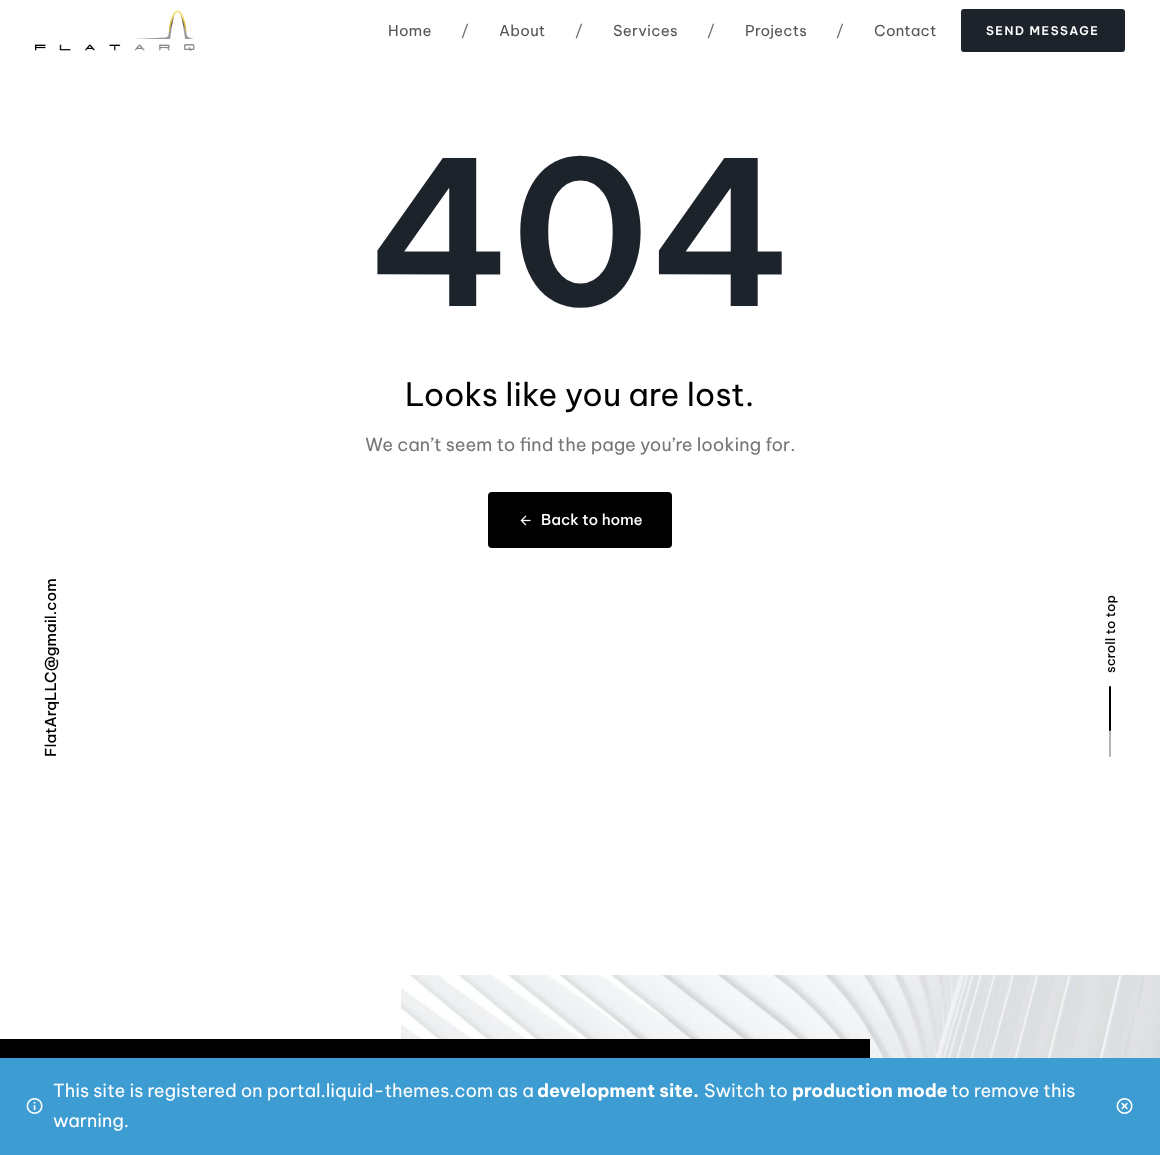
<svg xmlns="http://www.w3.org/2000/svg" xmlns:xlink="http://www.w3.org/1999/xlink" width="1160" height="1155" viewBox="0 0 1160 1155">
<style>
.cls-1{font:15px Be Vietnam Pro;letter-spacing:0.25px;fill:#545454}
.cls-2{font:15px Be Vietnam Pro;letter-spacing:0.25px;fill:#707070}
.cls-3{font:600 12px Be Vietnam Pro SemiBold;letter-spacing:1.5px;fill:#ffffff}
.cls-4{font:500 15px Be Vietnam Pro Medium;fill:#000000}
.cls-5{font:500 13px Be Vietnam Pro Medium;letter-spacing:0.1px;fill:#000000}
.cls-6{font:600 200px Be Vietnam Pro SemiBold;fill:#1d232b}
.cls-7{font:32px Be Vietnam Pro;fill:#000000}
.cls-8{font:18px Be Vietnam Pro;fill:#767676}
.cls-9{font:500 15px Be Vietnam Pro Medium;fill:#ffffff}
.cls-10{font:18px Be Vietnam Pro;fill:#ffffff}
.cls-11{font:bold 18px Be Vietnam Pro;fill:#ffffff}
</style>
<rect width="100%" height="100%" fill="#ffffff"/>
<image xlink:href="image0.png" x="35" y="10" width="160" height="41"/>
<rect fill="#1d232b" x="961" y="9" width="164" height="43" rx="3"/>
<rect fill="#b3b3b3" x="1109" y="687" width="2" height="70" rx="1"/>
<rect fill="#000000" x="1109" y="686" width="2" height="45" rx="1"/>
<rect fill="#000000" x="488" y="492" width="184" height="56" rx="4"/>
<image xlink:href="image1.png" x="520" y="515" width="11" height="11"/>
<image xlink:href="image2.png" x="401" y="975" width="759" height="83"/>
<rect fill="#000000" x="0" y="1039" width="870" height="19"/>
<rect fill="#3d9cd2" x="0" y="1058" width="1160" height="97"/>
<image xlink:href="image3.png" x="26" y="1098" width="17" height="16"/>
<image xlink:href="image4.png" x="1116" y="1098" width="17" height="16"/>
<text class="cls-1" x="388" y="36">Home</text>
<text class="cls-2" x="461" y="36">/</text>
<text class="cls-1" x="499" y="36">About</text>
<text class="cls-2" x="575" y="36">/</text>
<text class="cls-1" x="613" y="36">Services</text>
<text class="cls-2" x="707" y="36">/</text>
<text class="cls-1" x="745" y="36">Projects</text>
<text class="cls-2" x="836" y="36">/</text>
<text class="cls-1" x="874" y="36">Contact</text>
<text class="cls-3" x="986" y="35">SEND MESSAGE</text>
<text class="cls-4" x="56" y="757" transform="rotate(-90 56 757)">FlatArqLLC@gmail.com</text>
<text class="cls-5" x="1115" y="673" transform="rotate(-90 1115 673)">scroll to top</text>
<text class="cls-6" x="368" y="306">404</text>
<text class="cls-7" x="405" y="406">Looks like you are lost.</text>
<text class="cls-8" x="365" y="451">We can’t seem to find the page you’re looking for.</text>
<text class="cls-9" x="541" y="525">Back to home</text>
<text class="cls-10" x="53" y="1097">This site is registered on portal.liquid-themes.com as a</text>
<text class="cls-11" x="537" y="1097">development site.</text>
<text class="cls-10" x="704" y="1097">Switch to</text>
<text class="cls-11" x="792" y="1097">production mode</text>
<text class="cls-10" x="951" y="1097">to remove this</text>
<text class="cls-10" x="53" y="1127">warning.</text>
</svg>
